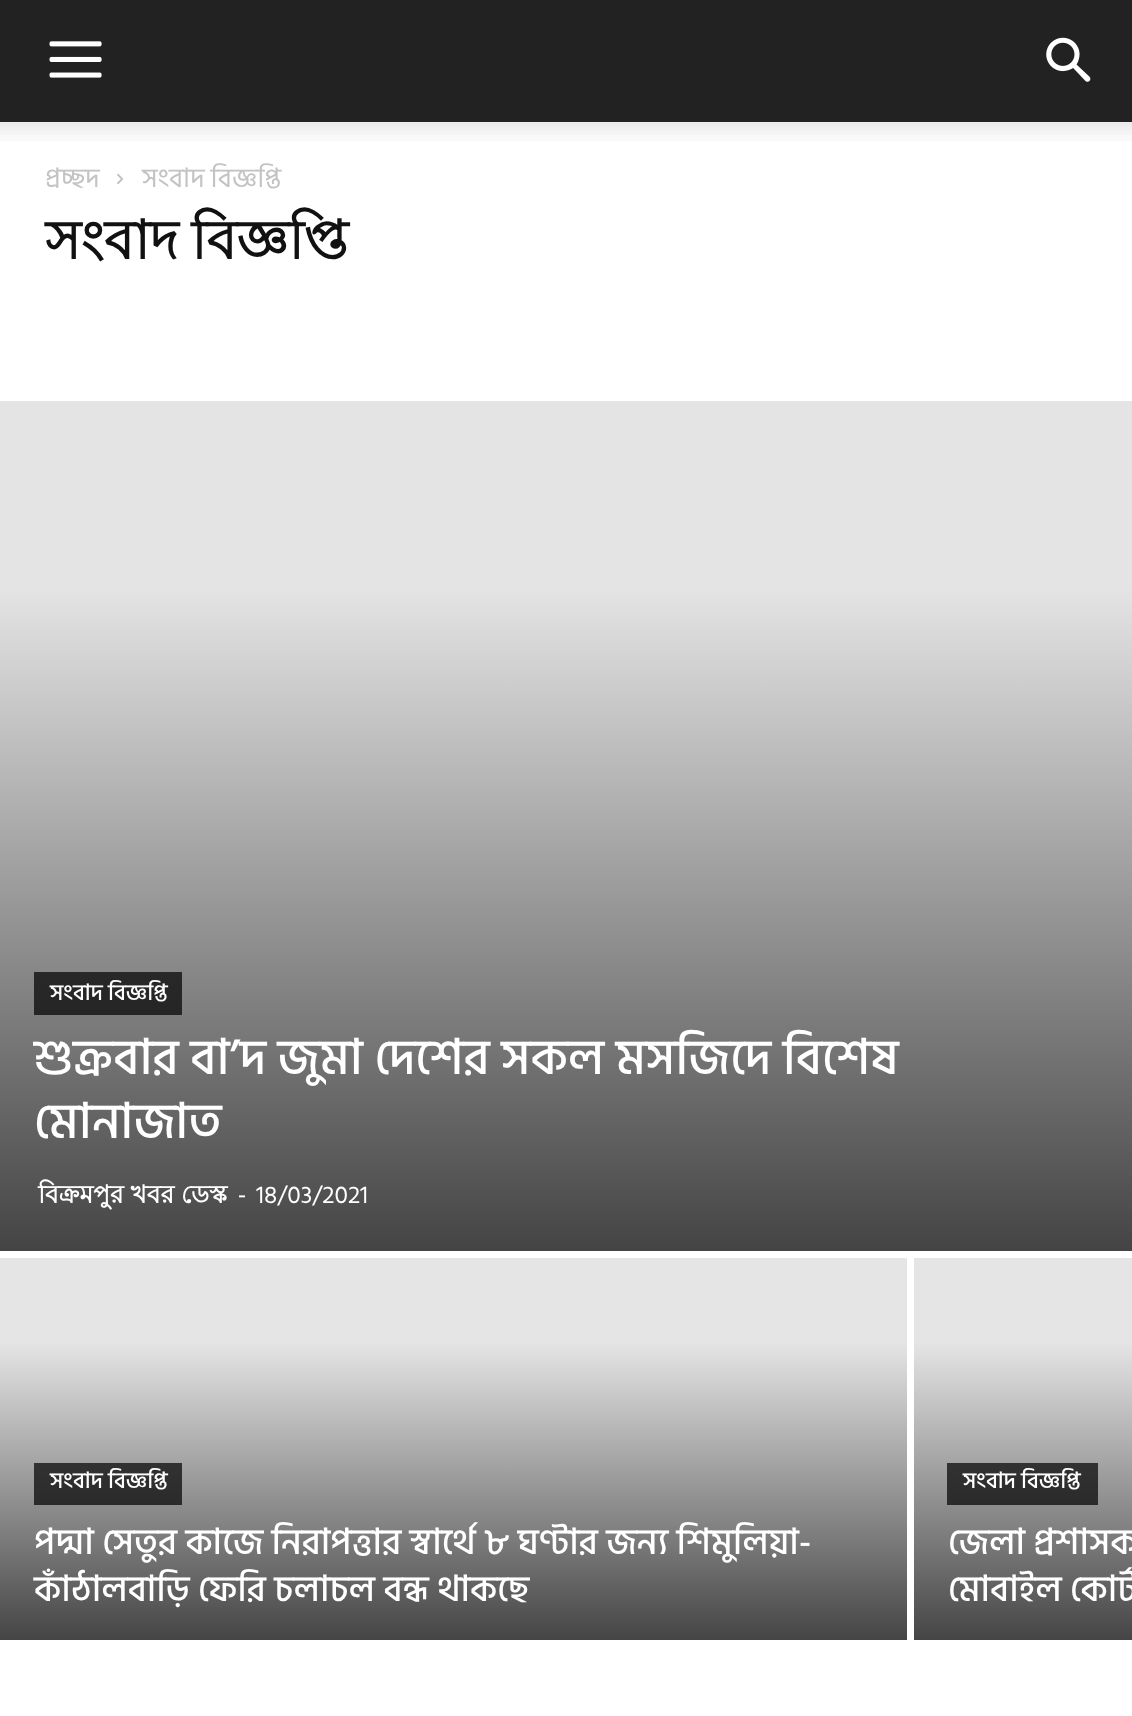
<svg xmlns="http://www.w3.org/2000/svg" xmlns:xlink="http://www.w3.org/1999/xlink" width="1132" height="1716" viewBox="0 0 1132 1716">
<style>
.cls-1{font:27px Hind Siliguri;fill:#c3c3c3}
.cls-2{font:bold 54px Lohit Bengali;fill:#111111}
.cls-3{font:500 22.5px Hind Siliguri;fill:#ffffff}
.cls-4{font:500 49.5px Hind Siliguri;fill:#ffffff}
.cls-5{font:bold 24.75px Lohit Bengali;fill:#ffffff}
.cls-6{font:24.75px Open Sans;fill:#ffffff}
.cls-7{font:24.75px Hind Siliguri;fill:#ffffff}
.cls-8{font:500 36px Hind Siliguri;fill:#ffffff}
</style>
<defs>
<linearGradient id="g1" gradientUnits="userSpaceOnUse" x1="567" y1="146" x2="567" y2="1251"><stop offset="0.4" stop-color="#e4e4e4"/><stop offset="1" stop-color="#444444"/></linearGradient>
<linearGradient id="g2" gradientUnits="userSpaceOnUse" x1="567" y1="146" x2="567" y2="1251"><stop offset="0.4" stop-color="#444444"/><stop offset="1" stop-color="#141414"/></linearGradient>
<linearGradient id="g3" gradientUnits="userSpaceOnUse" x1="453" y1="1143" x2="453" y2="1640"><stop offset="0.4" stop-color="#e5e5e5"/><stop offset="1" stop-color="#454545"/></linearGradient>
<linearGradient id="g4" gradientUnits="userSpaceOnUse" x1="453" y1="1143" x2="453" y2="1640"><stop offset="0.4" stop-color="#454545"/><stop offset="1" stop-color="#151515"/></linearGradient>
<linearGradient id="g5" gradientUnits="userSpaceOnUse" x1="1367" y1="1143" x2="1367" y2="1640"><stop offset="0.4" stop-color="#e5e5e5"/><stop offset="1" stop-color="#454545"/></linearGradient>
<linearGradient id="g6" gradientUnits="userSpaceOnUse" x1="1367" y1="1143" x2="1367" y2="1640"><stop offset="0.4" stop-color="#454545"/><stop offset="1" stop-color="#151515"/></linearGradient>
</defs>
<rect width="100%" height="100%" fill="#ffffff"/>
<rect fill="#222222" x="0" y="0" width="1132" height="122"/>
<image xlink:href="image0.png" x="49" y="41" width="53" height="37"/>
<image xlink:href="image1.png" x="1046" y="37" width="45" height="45"/>
<image xlink:href="image2.png" x="0" y="122" width="1132" height="19"/>
<image xlink:href="image3.png" x="117" y="173" width="6" height="12"/>
<rect fill="url(#g1)" x="0" y="401" width="1132" height="850"/>
<rect fill="url(#g2)" x="34" y="972" width="148" height="43"/>
<rect fill="url(#g3)" x="0" y="1258" width="907" height="382"/>
<rect fill="url(#g4)" x="34" y="1463" width="148" height="42"/>
<rect fill="url(#g5)" x="914" y="1258" width="218" height="382"/>
<rect fill="url(#g6)" x="947" y="1463" width="151" height="42"/>
<text class="cls-1" x="45" y="187">প্রচ্ছদ</text>
<text class="cls-1" x="142" y="187">সংবাদ বিজ্ঞপ্তি</text>
<text class="cls-2" x="45" y="259" word-spacing="-2">সংবাদ বিজ্ঞপ্তি</text>
<text class="cls-3" x="50" y="1000">সংবাদ বিজ্ঞপ্তি</text>
<text class="cls-4"><tspan x="34" y="1074">শুক্রবার বা’দ জুমা দেশের সকল মসজিদে বিশেষ</tspan><tspan x="34" y="1138">মোনাজাত</tspan></text>
<text class="cls-5" x="38" y="1203">বিক্রমপুর খবর ডেস্ক</text>
<text class="cls-6" x="238" y="1203">-</text>
<text class="cls-7" x="256" y="1203">18/03/2021</text>
<text class="cls-3" x="50" y="1488">সংবাদ বিজ্ঞপ্তি</text>
<text class="cls-8"><tspan x="34" y="1554">পদ্মা সেতুর কাজে নিরাপত্তার স্বার্থে ৮ ঘণ্টার জন্য শিমুলিয়া-</tspan><tspan x="34" y="1601">কাঁঠালবাড়ি ফেরি চলাচল বন্ধ থাকছে</tspan></text>
<text class="cls-3" x="963" y="1488">সংবাদ বিজ্ঞপ্তি</text>
<text class="cls-8"><tspan x="948" y="1554">জেলা প্রশাসক</tspan><tspan x="948" y="1601">মোবাইল কোর্ট</tspan></text>
</svg>
